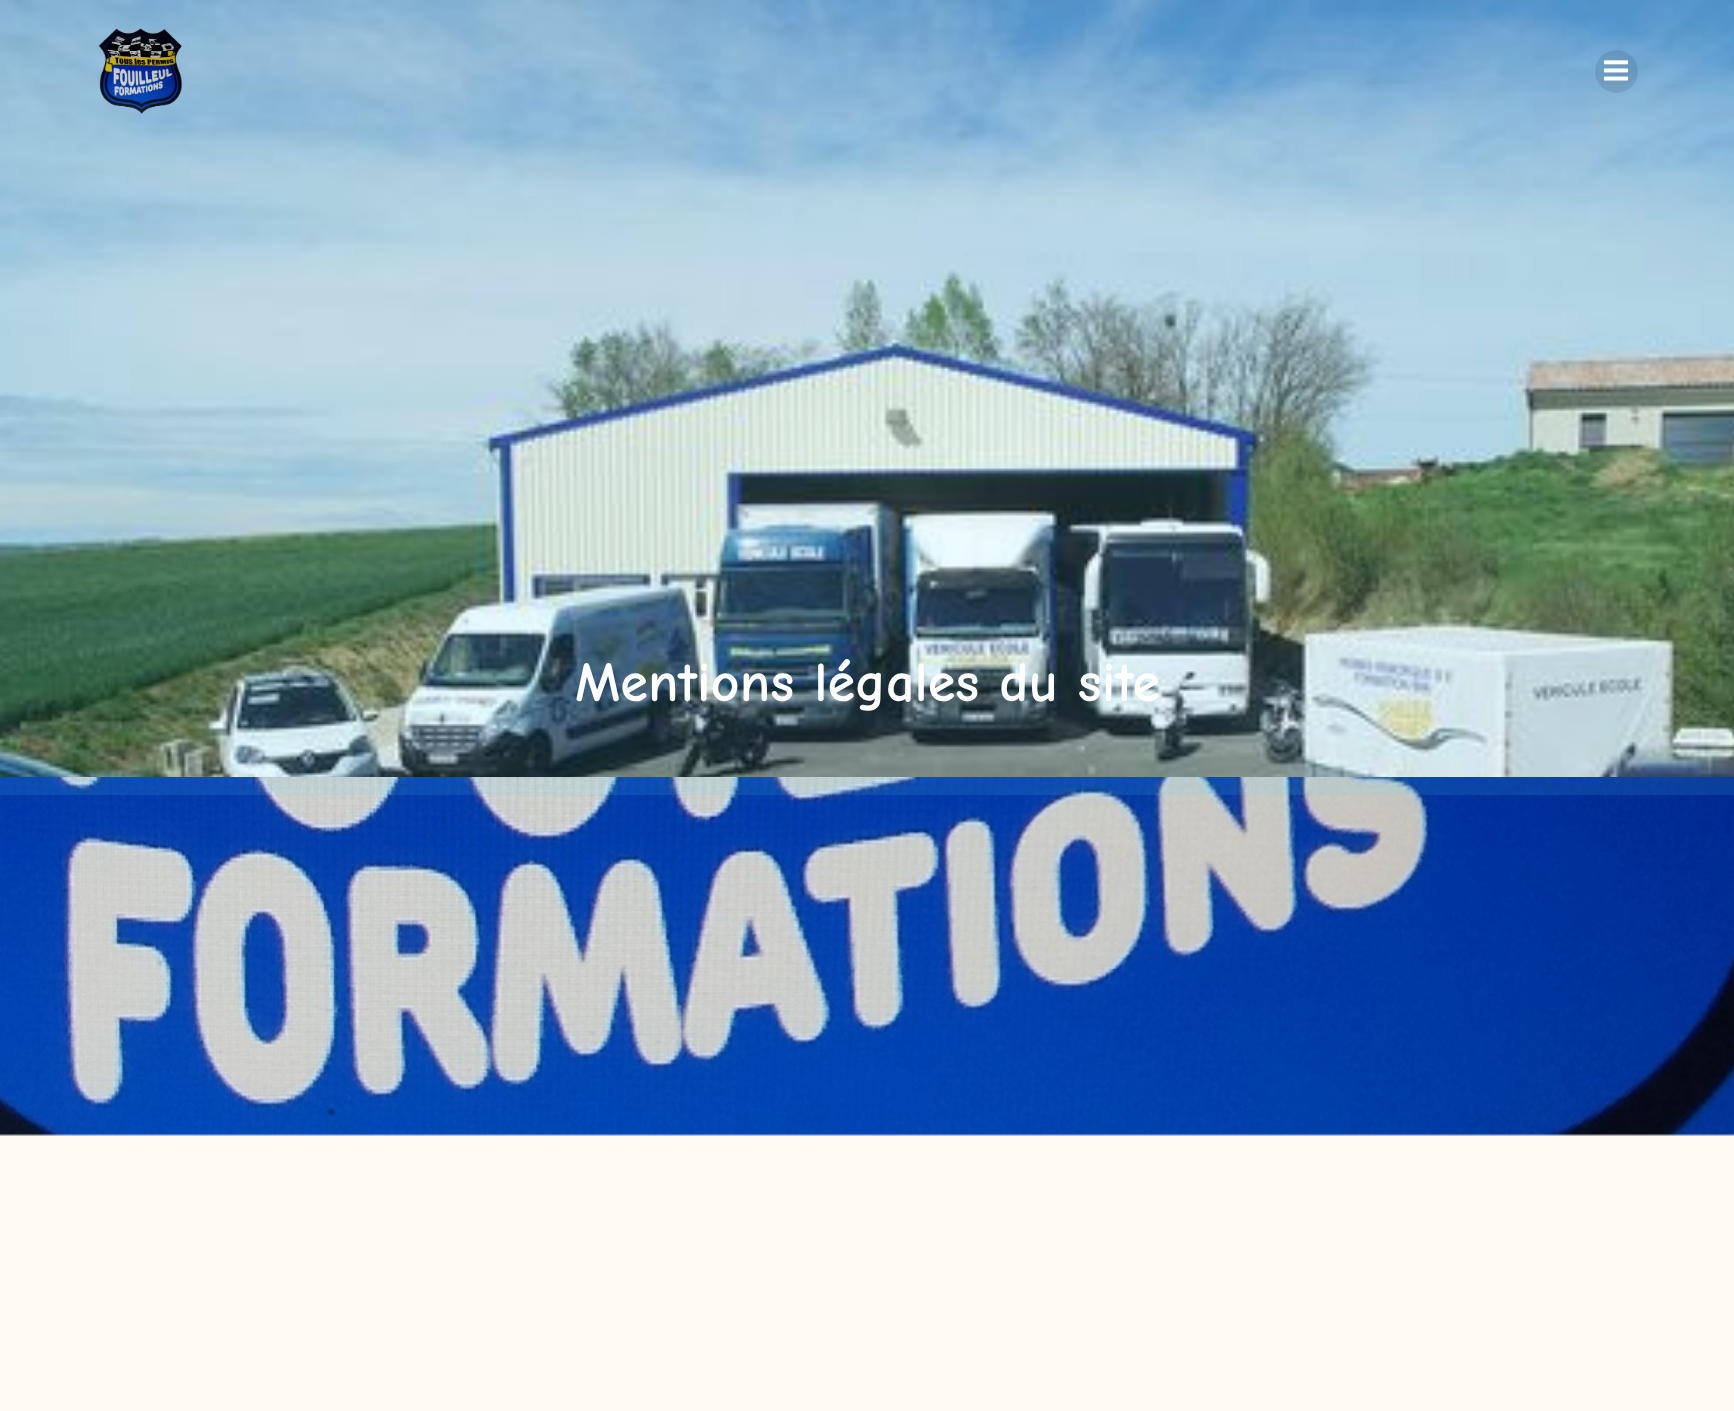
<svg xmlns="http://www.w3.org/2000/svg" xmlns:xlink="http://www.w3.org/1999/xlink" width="1734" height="1411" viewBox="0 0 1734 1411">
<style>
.cls-1{font:bold 56.25px Comic Neue;fill:#ffffff}
</style>
<rect width="100%" height="100%" fill="#fdfbf2"/>
<image xlink:href="image0.png" x="0" y="0" width="1734" height="795"/>
<image xlink:href="image3.png" x="0" y="777" width="1734" height="359"/>
<rect fill="#5ae2f7" fill-opacity="0.12" x="0" y="0" width="1734" height="795"/>
<image xlink:href="image1.png" x="99" y="28" width="84" height="86"/>
<circle fill="#000000" fill-opacity="0.1" cx="1616.5" cy="71.5" r="21.5"/>
<image xlink:href="image2.png" x="1604" y="60" width="25" height="21"/>
<text class="cls-1" x="575" y="701">Mentions légales du site</text>
</svg>
